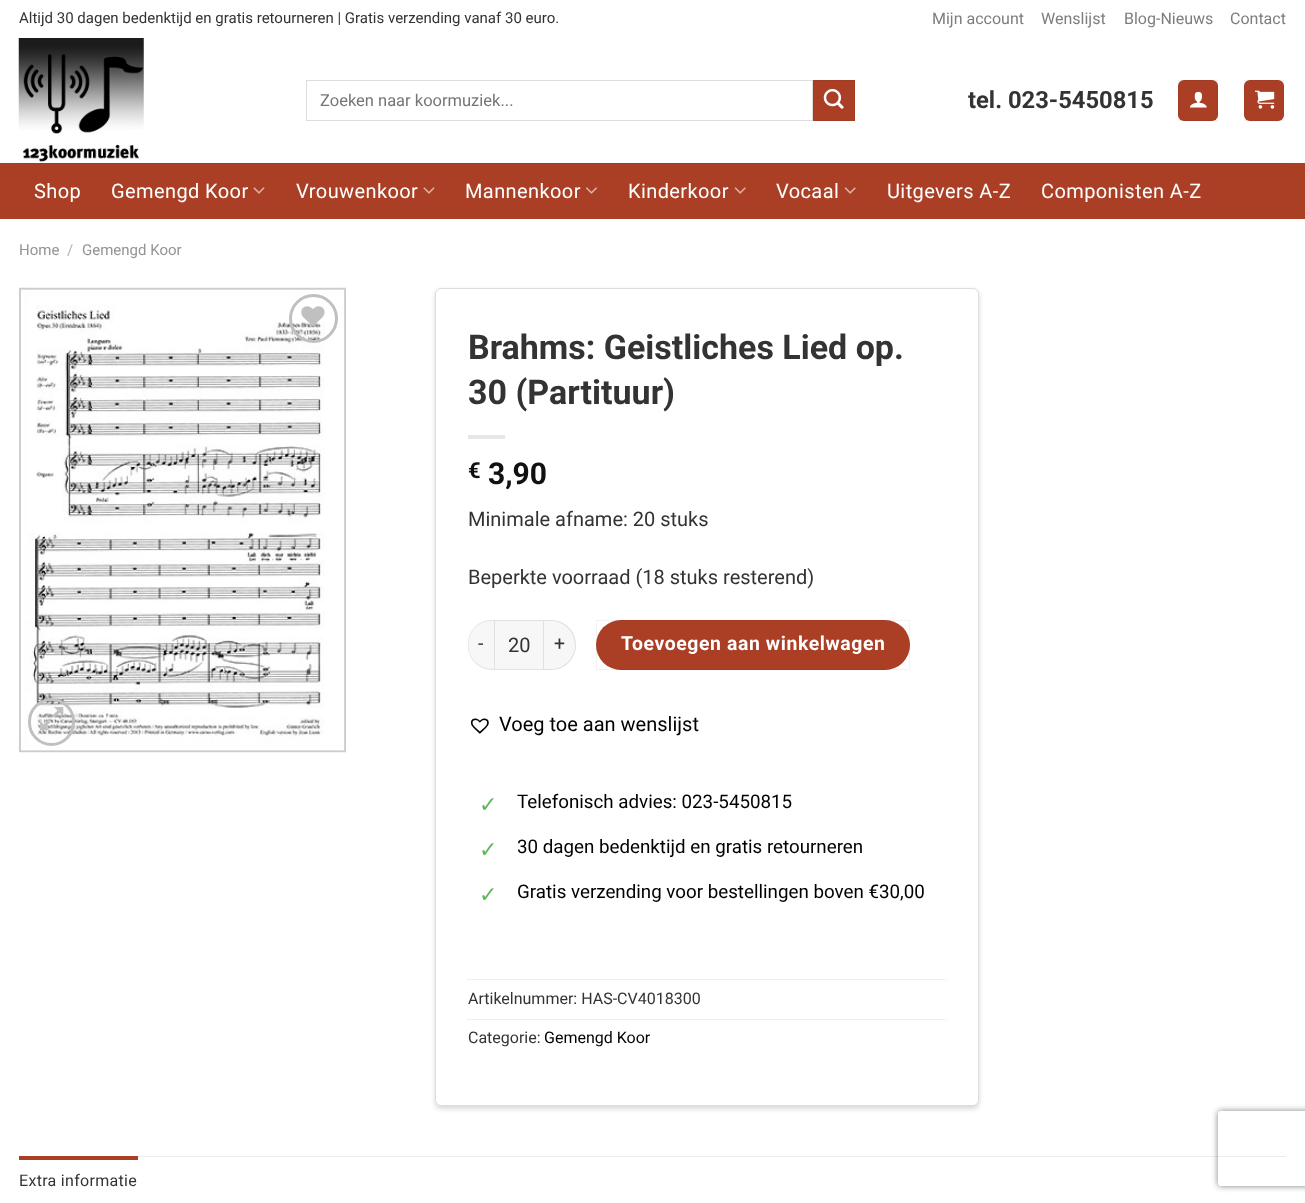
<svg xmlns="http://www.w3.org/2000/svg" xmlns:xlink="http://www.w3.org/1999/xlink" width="1305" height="1203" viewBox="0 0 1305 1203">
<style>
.cls-1{font:15px Roboto;fill:#333333}
.cls-2{font:16px Roboto;fill:#7d7d7d}
.cls-3{font:16.5px Roboto;fill:#757575}
.cls-4{font:bold 23.75px Roboto;fill:#333333}
.cls-5{font:20px Roboto;letter-spacing:0.4px;fill:#ffffff}
.cls-6{font:15px Roboto;fill:#949494}
.cls-7{font:15px Roboto;fill:#b2b2b2}
.cls-8{font:bold 34px Roboto;fill:#333333}
.cls-9{font:bold 22px Roboto;fill:#111111}
.cls-10{font:bold 30px Roboto;fill:#111111}
.cls-11{font:20px Roboto;fill:#333333}
.cls-12{font:19.4px Roboto;letter-spacing:0.6px;fill:#333333}
.cls-13{font:bold 19.4px Roboto;letter-spacing:0.6px;fill:#ffffff}
.cls-14{font:20px Roboto;fill:#000000}
.cls-15{font:22px DejaVu Sans;fill:#5cb85c}
.cls-16{font:18.75px Roboto;fill:#000000}
.cls-17{font:16px Roboto;fill:#333333}
.cls-18{font:16px Roboto;fill:#000000}
.cls-19{font:16px Roboto;letter-spacing:0.3px;fill:#333333}
</style>
<defs>
<clipPath id="clip1"><path d="M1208 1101H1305V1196H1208ZM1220.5 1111H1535.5C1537 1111 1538 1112 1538 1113.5V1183.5C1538 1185 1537 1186 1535.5 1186H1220.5C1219 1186 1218 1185 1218 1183.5V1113.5C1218 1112 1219 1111 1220.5 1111Z" clip-rule="evenodd"/></clipPath>
</defs>
<rect width="100%" height="100%" fill="#ffffff"/>
<image xlink:href="image0.png" x="18" y="38" width="126" height="124"/>
<rect fill="none" stroke="#dddddd" x="306.5" y="80.5" width="506" height="40"/>
<rect fill="#aa3f25" stroke="#a23c23" x="813.5" y="80.5" width="41" height="40"/>
<image xlink:href="image1.png" x="823" y="88" width="21" height="21"/>
<rect fill="#aa3f25" x="1178" y="80" width="40" height="41" rx="6"/>
<rect fill="none" stroke="#000000" stroke-opacity="0.05" x="1178.5" y="80.5" width="39" height="40"/>
<image xlink:href="image2.png" x="1190" y="91" width="17" height="17"/>
<rect fill="#aa3f25" x="1244" y="80" width="40" height="41" rx="6"/>
<rect fill="none" stroke="#000000" stroke-opacity="0.05" x="1244.5" y="80.5" width="39" height="40"/>
<image xlink:href="image3.png" x="1255" y="90" width="20" height="19"/>
<rect fill="#aa3f25" x="0" y="163" width="1305" height="56"/>
<rect fill="#9e3e26" x="19" y="163" width="1267" height="1"/>
<image xlink:href="image4.png" x="253" y="187" width="12" height="7"/>
<image xlink:href="image4.png" x="423" y="187" width="12" height="7"/>
<image xlink:href="image5.png" x="585" y="187" width="12" height="7"/>
<image xlink:href="image6.png" x="734" y="187" width="12" height="7"/>
<image xlink:href="image6.png" x="844" y="187" width="12" height="7"/>
<image xlink:href="image7.png" x="19" y="287" width="327" height="466"/>
<circle fill="none" stroke="#c0c0c0" stroke-width="3" cx="313.5" cy="318.5" r="23"/>
<image xlink:href="image8.png" x="301" y="306" width="24" height="21"/>
<rect fill="none" stroke="#c0c0c0" stroke-width="3" x="29.5" y="699.5" width="44" height="45" rx="22"/>
<image xlink:href="image9.png" x="40" y="706" width="24" height="25"/>
<rect fill="#000000" fill-opacity="0.15" filter="blur(2.5px)" x="435" y="290" width="544" height="819" rx="6"/>
<rect fill="#ffffff" stroke="#dddddd" x="435.5" y="288.5" width="543" height="817" rx="5.5"/>
<rect fill="#e6e6e6" x="468" y="435" width="37" height="4"/>
<path fill="#f7f7f7" d="M493 620H494V670H493C479 670 468 659 468 645C468 631 479 620 493 620Z"/>
<path fill="#000000" fill-opacity="0.09" fill-rule="evenodd" d="M492 620H494V670C459 670 460 620 492 620ZM492 621H494V669C460 669 461 621 492 621Z"/>
<rect fill="#f7f7f7" stroke="#e1e1e1" x="494.5" y="620.5" width="49" height="49"/>
<path fill="#f7f7f7" d="M544 620H551C565 620 576 631 576 645C576 659 565 670 551 670H544Z"/>
<path fill="#000000" fill-opacity="0.09" fill-rule="evenodd" d="M544 620H551C565 620 576 631 576 645C576 659 565 670 551 670H544ZM544 621H551C564 621 575 632 575 645C575 658 564 669 551 669H544Z"/>
<rect fill="#aa3f25" x="596" y="620" width="314" height="50" rx="25"/>
<rect fill="none" stroke="#000000" stroke-opacity="0.05" x="596.5" y="620.5" width="313" height="49"/>
<image xlink:href="image10.png" x="470" y="718" width="19" height="16"/>
<path fill="none" stroke="#dddddd" stroke-width="1.2" stroke-dasharray="1.25 1.25" d="M467.5 979.5H946"/>
<path fill="none" stroke="#dddddd" stroke-width="1.2" stroke-dasharray="1.25 1.25" d="M467.5 1019.5H946"/>
<rect fill="#ececec" x="138" y="1156" width="1148" height="1"/>
<rect fill="#aa3f25" x="19" y="1156" width="119" height="4"/>
<g clip-path="url(#clip1)">
<rect fill="#808080" filter="blur(3px)" x="1218" y="1111" width="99" height="75" rx="2.5"/>
</g>
<text class="cls-1" x="19" y="23">Altijd 30 dagen bedenktijd en gratis retourneren | Gratis verzending vanaf 30 euro.</text>
<text class="cls-2" x="932" y="24">Mijn account</text>
<text class="cls-2" x="1041" y="24">Wenslijst</text>
<text class="cls-2" x="1124" y="24">Blog-Nieuws</text>
<text class="cls-2" x="1230" y="24">Contact</text>
<text class="cls-3" x="320" y="106">Zoeken naar koormuziek...</text>
<text class="cls-4" x="968" y="108">tel. 023-5450815</text>
<text class="cls-5" x="34" y="198">Shop</text>
<text class="cls-5" x="111" y="198">Gemengd Koor</text>
<text class="cls-5" x="296" y="198">Vrouwenkoor</text>
<text class="cls-5" x="465" y="198">Mannenkoor</text>
<text class="cls-5" x="628" y="198">Kinderkoor</text>
<text class="cls-5" x="776" y="198">Vocaal</text>
<text class="cls-5" x="887" y="198">Uitgevers A-Z</text>
<text class="cls-5" x="1041" y="198">Componisten A-Z</text>
<text class="cls-6" x="19" y="255">Home</text>
<text class="cls-7" x="67" y="255">/</text>
<text class="cls-6" x="82" y="255">Gemengd Koor</text>
<text class="cls-8"><tspan x="468" y="359">Brahms: Geistliches Lied op.</tspan><tspan x="468" y="404">30 (Partituur)</tspan></text>
<text class="cls-9" x="468" y="478">€</text>
<text class="cls-10" x="488" y="484">3,90</text>
<text class="cls-11" x="468" y="526">Minimale afname: 20 stuks</text>
<text class="cls-11" x="468" y="584">Beperkte voorraad (18 stuks resterend)</text>
<text class="cls-12" x="478" y="650">-</text>
<text class="cls-11" x="508" y="652">20</text>
<text class="cls-12" x="554" y="650">+</text>
<text class="cls-13" x="621" y="650">Toevoegen aan winkelwagen</text>
<text class="cls-14" x="499" y="731">Voeg toe aan wenslijst</text>
<text class="cls-15" x="479" y="812">✓</text>
<text class="cls-16" x="517" y="808">Telefonisch advies: 023-5450815</text>
<text class="cls-15" x="479" y="857">✓</text>
<text class="cls-16" x="517" y="853">30 dagen bedenktijd en gratis retourneren</text>
<text class="cls-15" x="479" y="902">✓</text>
<text class="cls-16" x="517" y="898">Gratis verzending voor bestellingen boven €30,00</text>
<text class="cls-17" x="468" y="1004">Artikelnummer: HAS-CV4018300</text>
<text class="cls-17" x="468" y="1043">Categorie:</text>
<text class="cls-18" x="544" y="1043">Gemengd Koor</text>
<text class="cls-19" x="19" y="1186">Extra informatie</text>
</svg>
